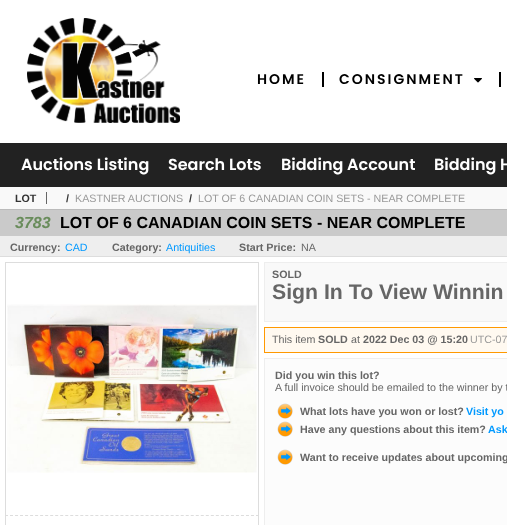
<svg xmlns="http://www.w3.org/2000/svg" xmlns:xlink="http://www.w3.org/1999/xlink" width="507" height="525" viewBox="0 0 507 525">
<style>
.cls-1{font:600 14px Poppins;letter-spacing:2px;fill:#000000}
.cls-2{font:600 16px Poppins;fill:#ffffff}
.cls-3{font:bold 10.7px Liberation Sans;fill:#333333}
.cls-4{font:10.7px Liberation Sans;fill:#999999}
.cls-5{font:italic bold 16px Liberation Sans;fill:#698c5b}
.cls-6{font:bold 16px Liberation Sans;fill:#000000}
.cls-7{font:bold 10.7px Liberation Sans;fill:#666666}
.cls-8{font:10.7px Liberation Sans;fill:#0099ff}
.cls-9{font:10.7px Liberation Sans;fill:#666666}
.cls-10{font:bold 21.25px Liberation Sans;fill:#666666}
.cls-11{font:bold 10.7px Liberation Sans;fill:#0099ff}
</style>
<rect width="100%" height="100%" fill="#ffffff"/>
<image xlink:href="image0.png" x="27" y="18" width="153" height="105"/>
<rect fill="#000000" x="322" y="72" width="2" height="15"/>
<image xlink:href="image1.png" x="474" y="78" width="8" height="5"/>
<rect fill="#000000" x="499" y="72" width="2" height="15"/>
<rect fill="#222222" x="0" y="143" width="507" height="44"/>
<rect fill="#f9f9f9" x="0" y="187" width="507" height="22"/>
<rect fill="#bbbbbb" x="0" y="209" width="507" height="1"/>
<rect fill="#666666" x="46" y="192" width="1" height="12"/>
<rect fill="#cacaca" x="0" y="210" width="507" height="26"/>
<rect fill="#eeeeee" x="0" y="236" width="507" height="20"/>
<rect fill="#dddddd" x="0" y="256" width="507" height="1"/>
<rect fill="#dddddd" x="5" y="262" width="254" height="1"/>
<rect fill="#dddddd" x="258" y="262" width="1" height="253"/>
<rect fill="#dddddd" x="5" y="262" width="1" height="253"/>
<image xlink:href="image2.png" x="7" y="304" width="250" height="169"/>
<path fill="none" stroke="#dddddd" stroke-dasharray="3 2.02" d="M5 515.5H259"/>
<rect fill="#dddddd" x="258" y="515" width="1" height="10"/>
<rect fill="#dddddd" x="5" y="515" width="1" height="10"/>
<rect fill="#f9f9f9" stroke="#eeeeee" x="264.5" y="262.5" width="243" height="59"/>
<rect fill="#fff9f0" stroke="#ff9900" x="264.5" y="327.5" width="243" height="25"/>
<rect fill="#fcfcfc" stroke="#eeeeee" x="264.5" y="358.5" width="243" height="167"/>
<image xlink:href="image3.png" x="277" y="403" width="16" height="16"/>
<image xlink:href="image3.png" x="277" y="421" width="16" height="16"/>
<image xlink:href="image3.png" x="277" y="449" width="16" height="16"/>
<text class="cls-1" x="257" y="84">HOME</text>
<text class="cls-1" x="339" y="84">CONSIGNMENT</text>
<text class="cls-2" x="21" y="170">Auctions Listing</text>
<text class="cls-2" x="168" y="170">Search Lots</text>
<text class="cls-2" x="281" y="170">Bidding Account</text>
<text class="cls-2" x="434" y="170">Bidding H</text>
<text class="cls-3" x="15" y="202">LOT</text>
<text class="cls-3" x="66" y="202">/</text>
<text class="cls-4" x="75" y="202">KASTNER AUCTIONS</text>
<text class="cls-3" x="189" y="202">/</text>
<text class="cls-4" x="198" y="202">LOT OF 6 CANADIAN COIN SETS - NEAR COMPLETE</text>
<text class="cls-5" x="15" y="228">3783</text>
<text class="cls-6" x="60" y="228">LOT OF 6 CANADIAN COIN SETS - NEAR COMPLETE</text>
<text class="cls-7" x="10" y="251">Currency:</text>
<text class="cls-8" x="65" y="251">CAD</text>
<text class="cls-7" x="112" y="251">Category:</text>
<text class="cls-8" x="166" y="251">Antiquities</text>
<text class="cls-7" x="239" y="251">Start Price:</text>
<text class="cls-9" x="301" y="251">NA</text>
<text class="cls-7" x="272" y="278">SOLD</text>
<text class="cls-10" x="272" y="299">Sign In To View Winnin</text>
<text class="cls-9" x="272" y="343">This item</text>
<text class="cls-7" x="318" y="343">SOLD</text>
<text class="cls-9" x="351" y="343">at</text>
<text class="cls-7" x="363" y="343">2022 Dec 03 @ 15:20</text>
<text class="cls-4" x="470" y="343">UTC-07</text>
<text class="cls-7" x="275" y="379">Did you win this lot?</text>
<text class="cls-9" x="275" y="391">A full invoice should be emailed to the winner by t</text>
<text class="cls-7" x="300" y="415">What lots have you won or lost?</text>
<text class="cls-11" x="466" y="415">Visit yo</text>
<text class="cls-7" x="300" y="433">Have any questions about this item?</text>
<text class="cls-11" x="488" y="433">Ask</text>
<text class="cls-7" x="300" y="461">Want to receive updates about upcoming</text>
</svg>
